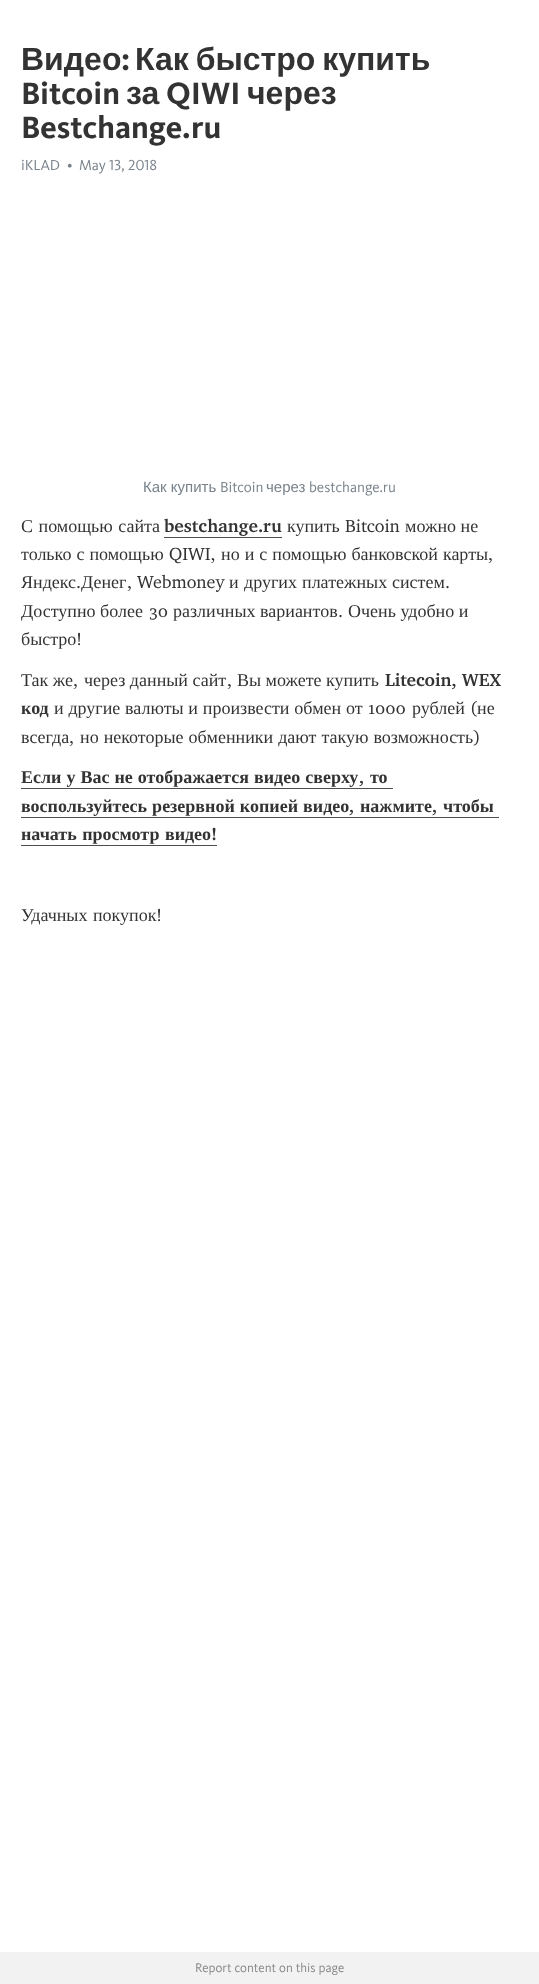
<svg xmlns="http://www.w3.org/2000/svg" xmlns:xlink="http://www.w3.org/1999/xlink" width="539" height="1984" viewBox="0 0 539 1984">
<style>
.cls-1{font:bold 32px Liberation Sans;fill:#333333}
.cls-2{font:bold 32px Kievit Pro;fill:#333333}
.cls-3{font:15px Kievit Pro;fill:#79828b}
.cls-4{font:15px Liberation Sans;fill:#79828b}
.cls-5{font:18px Liberation Serif;fill:#333333}
.cls-6{font:bold 18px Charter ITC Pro;fill:#333333}
.cls-7{font:18px Charter ITC Pro;fill:#333333}
.cls-8{font:bold 18px Liberation Serif;fill:#333333}
.cls-9{font:13px Kievit Pro;fill:#888888}
</style>
<rect width="100%" height="100%" fill="#ffffff"/>
<rect fill="#4d4d4d" x="164" y="537" width="118" height="1"/>
<rect fill="#4d4d4d" x="21" y="788" width="372" height="1"/>
<rect fill="#4d4d4d" x="21" y="817" width="478" height="1"/>
<rect fill="#4d4d4d" x="21" y="845" width="196" height="1"/>
<rect fill="#f2f2f2" x="0" y="1952" width="539" height="32"/>
<text class="cls-1" x="21" y="70">Видео</text>
<text class="cls-2" x="121" y="70">:</text>
<text class="cls-1" x="135" y="70" word-spacing="-2">Как быстро купить</text>
<text class="cls-2" x="21" y="104">Bitcoin</text>
<text class="cls-1" x="126" y="104">за</text>
<text class="cls-2" x="166" y="104">QIWI</text>
<text class="cls-1" x="247" y="104">через</text>
<text class="cls-2" x="21" y="138">Bestchange.ru</text>
<text class="cls-3" x="21" y="170">iKLAD</text>
<text class="cls-3" x="67" y="170">•</text>
<text class="cls-3" x="79" y="170">May 13, 2018</text>
<text class="cls-4" x="143" y="492">Как купить</text>
<text class="cls-3" x="220" y="492">Bitcoin</text>
<text class="cls-4" x="266" y="492">через</text>
<text class="cls-3" x="309" y="492">bestchange.ru</text>
<text class="cls-5" x="21" y="532" word-spacing="1">С помощью сайта</text>
<text class="cls-6" x="164" y="532">bestchange.ru</text>
<text class="cls-5" x="287" y="532">купить</text>
<text class="cls-7" x="345" y="532">Bitcoin</text>
<text class="cls-5" x="405" y="532">можно не</text>
<text class="cls-5" x="21" y="560" word-spacing="0.5">только с помощью</text>
<text class="cls-7" x="169" y="560">QIWI,</text>
<text class="cls-5" x="221" y="560" word-spacing="0.5">но и с помощью банковской карты</text>
<text class="cls-7" x="488" y="560">,</text>
<text class="cls-5" x="21" y="588">Яндекс</text>
<text class="cls-7" x="76" y="588">.</text>
<text class="cls-5" x="81" y="588">Денег</text>
<text class="cls-7" x="127" y="588">, Webmoney</text>
<text class="cls-5" x="229" y="588">и</text>
<text class="cls-5" x="244" y="588">других</text>
<text class="cls-5" x="302" y="588">платежных</text>
<text class="cls-5" x="392" y="588">систем</text>
<text class="cls-7" x="445" y="588">.</text>
<text class="cls-5" x="21" y="617">Доступно более</text>
<text class="cls-7" x="149" y="617">30</text>
<text class="cls-5" x="173" y="617">различных вариантов</text>
<text class="cls-7" x="338" y="617">.</text>
<text class="cls-5" x="348" y="617">Очень удобно и</text>
<text class="cls-5" x="21" y="645">быстро</text>
<text class="cls-7" x="76" y="645">!</text>
<text class="cls-5" x="21" y="686">Так же</text>
<text class="cls-7" x="73" y="686">,</text>
<text class="cls-5" x="84" y="686">через данный сайт</text>
<text class="cls-7" x="227" y="686">,</text>
<text class="cls-5" x="237" y="686">Вы можете купить</text>
<text class="cls-6" x="385" y="686">Litecoin, WEX</text>
<text class="cls-8" x="21" y="714">код</text>
<text class="cls-5" x="54" y="714" word-spacing="0.25">и другие валюты и произвести обмен от</text>
<text class="cls-7" x="368" y="714">1000</text>
<text class="cls-5" x="412" y="714">рублей</text>
<text class="cls-7" x="470" y="714">(</text>
<text class="cls-5" x="477" y="714">не</text>
<text class="cls-5" x="21" y="743">всегда</text>
<text class="cls-7" x="69" y="743">,</text>
<text class="cls-5" x="80" y="743" word-spacing="0.5">но некоторые обменники дают такую возможность</text>
<text class="cls-7" x="473" y="743">)</text>
<text class="cls-8" x="21" y="783" word-spacing="0.5">Если у Вас не отображается видео сверху</text>
<text class="cls-6" x="359" y="783">,</text>
<text class="cls-8" x="370" y="783">то</text>
<text class="cls-8" x="21" y="812" word-spacing="0.5">воспользуйтесь резервной копией видео</text>
<text class="cls-6" x="349" y="812">,</text>
<text class="cls-8" x="360" y="812">нажмите</text>
<text class="cls-6" x="432" y="812">,</text>
<text class="cls-8" x="443" y="812">чтобы</text>
<text class="cls-8" x="21" y="840" word-spacing="1">начать просмотр видео</text>
<text class="cls-6" x="211" y="840">!</text>
<text class="cls-5" x="21" y="921" word-spacing="1">Удачных покупок</text>
<text class="cls-7" x="156" y="921">!</text>
<text class="cls-9" x="195" y="1972">Report content on this page</text>
</svg>
